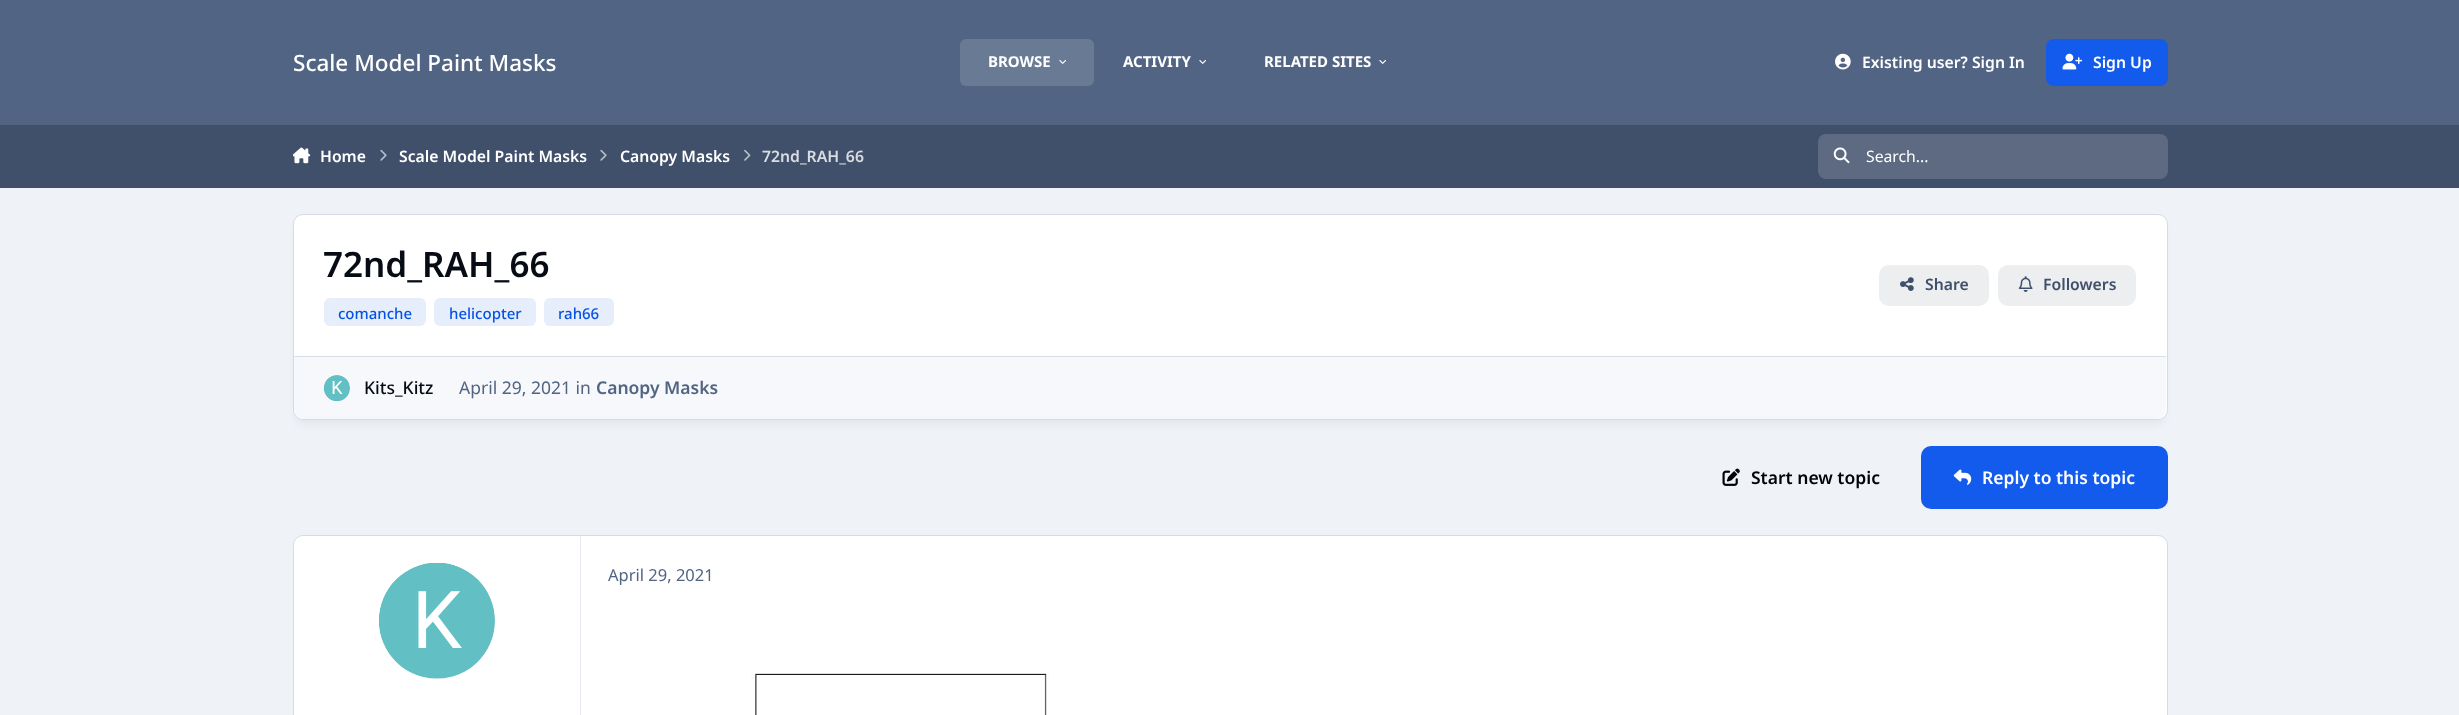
<svg xmlns="http://www.w3.org/2000/svg" xmlns:xlink="http://www.w3.org/1999/xlink" width="2459" height="715" viewBox="0 0 2459 715">
<style>
.cls-1{font:500 22.5px Noto Sans;fill:#ffffff}
.cls-2{font:bold 15px Noto Sans;fill:#ffffff}
.cls-3{font:600 15.75px Noto Sans;fill:#ffffff}
.cls-4{font:600 15.75px Noto Sans;fill:#d9dce1}
.cls-5{font:15.75px Noto Sans;fill:#ffffff}
.cls-6{font:600 35px Noto Sans;fill:#060b14}
.cls-7{font:500 15px Noto Sans;fill:#0752e2}
.cls-8{font:600 15.75px Noto Sans;fill:#40506b}
.cls-9{font:500 17.5px Noto Sans;fill:#060b14}
.cls-10{font:17.5px Noto Sans;fill:#516483}
.cls-11{font:600 17.5px Noto Sans;fill:#516483}
.cls-12{font:600 17.5px Noto Sans;fill:#020305}
.cls-13{font:600 17.5px Noto Sans;fill:#ffffff}
.cls-14{font:16.5px Noto Sans;fill:#516483}
</style>
<rect width="100%" height="100%" fill="#eff2f7"/>
<rect fill="#516483" x="0" y="0" width="2459" height="125"/>
<rect fill="#697a94" x="960" y="39" width="134" height="47" rx="6"/>
<image xlink:href="image0.png" x="1059" y="60" width="7" height="4"/>
<image xlink:href="image1.png" x="1199" y="60" width="7" height="4"/>
<image xlink:href="image1.png" x="1379" y="60" width="7" height="4"/>
<image xlink:href="image2.png" x="1835" y="53" width="16" height="17"/>
<rect fill="#135bec" x="2046" y="39" width="122" height="47" rx="8"/>
<image xlink:href="image3.png" x="2062" y="53" width="21" height="17"/>
<rect fill="#40506b" x="0" y="125" width="2459" height="63"/>
<image xlink:href="image4.png" x="293" y="147" width="18" height="17"/>
<image xlink:href="image5.png" x="380" y="149" width="7" height="12"/>
<image xlink:href="image5.png" x="600" y="149" width="7" height="12"/>
<image xlink:href="image6.png" x="744" y="149" width="7" height="12"/>
<rect fill="#5d6a81" x="1818" y="134" width="350" height="45" rx="8"/>
<image xlink:href="image7.png" x="1833" y="147" width="17" height="17"/>
<rect fill="#01030a" fill-opacity="0.05" filter="blur(4.5px)" x="296" y="225" width="1868" height="199" rx="6"/>
<rect fill="#ffffff" stroke="#d5dbe6" x="293.5" y="214.5" width="1874" height="205" rx="9.5"/>
<rect fill="#e6eefc" x="324" y="298" width="102" height="28" rx="6"/>
<rect fill="#e6eefc" x="434" y="298" width="102" height="28" rx="6"/>
<rect fill="#e6eefc" x="544" y="298" width="70" height="28" rx="6"/>
<rect fill="#eceef0" x="1879" y="265" width="110" height="41" rx="10"/>
<image xlink:href="image8.png" x="1900" y="277" width="14" height="14"/>
<rect fill="#eceef0" x="1998" y="265" width="138" height="41" rx="10"/>
<image xlink:href="image9.png" x="2018" y="276" width="15" height="16"/>
<path fill="#f7f8fb" d="M294 356H2166V409C2166 414.5 2161.5 419 2156 419H304C298.5 419 294 414.5 294 409Z"/>
<rect fill="#d7dfea" x="294" y="356" width="1872" height="1"/>
<circle fill="#e5eaf2" cx="337" cy="388" r="13"/>
<image xlink:href="image10.png" x="324" y="375" width="26" height="26"/>
<image xlink:href="image11.png" x="1722" y="468" width="18" height="18"/>
<rect fill="#135bec" x="1921" y="446" width="247" height="63" rx="10"/>
<image xlink:href="image12.png" x="1953" y="469" width="19" height="16"/>
<rect fill="#ffffff" stroke="#d5dbe6" x="293.5" y="535.5" width="1874" height="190" rx="9.5"/>
<rect fill="#e5eaf2" x="580" y="536" width="1" height="179"/>
<circle fill="#e5eaf2" cx="437" cy="621" r="58"/>
<image xlink:href="image13.png" x="379" y="563" width="116" height="116"/>
<image xlink:href="image14.png" x="751" y="673" width="298" height="42"/>
<text class="cls-1" x="293" y="71">Scale Model Paint Masks</text>
<text class="cls-2" x="988" y="67">BROWSE</text>
<text class="cls-2" x="1123" y="67">ACTIVITY</text>
<text class="cls-2" x="1264" y="67">RELATED SITES</text>
<text class="cls-3" x="1862" y="68">Existing user? Sign In</text>
<text class="cls-3" x="2093" y="68">Sign Up</text>
<text class="cls-3" x="320" y="162">Home</text>
<text class="cls-3" x="399" y="162">Scale Model Paint Masks</text>
<text class="cls-3" x="620" y="162">Canopy Masks</text>
<text class="cls-4" x="762" y="162">72nd_RAH_66</text>
<text class="cls-5" x="1866" y="162">Search...</text>
<text class="cls-6" x="323" y="277">72nd_RAH_66</text>
<text class="cls-7" x="338" y="319">comanche</text>
<text class="cls-7" x="449" y="319">helicopter</text>
<text class="cls-7" x="558" y="319">rah66</text>
<text class="cls-8" x="1925" y="290">Share</text>
<text class="cls-8" x="2043" y="290">Followers</text>
<text class="cls-9" x="364" y="394">Kits_Kitz</text>
<text class="cls-10" x="459" y="394">April 29, 2021 in</text>
<text class="cls-11" x="596" y="394">Canopy Masks</text>
<text class="cls-12" x="1751" y="484">Start new topic</text>
<text class="cls-13" x="1982" y="484">Reply to this topic</text>
<text class="cls-14" x="608" y="581">April 29, 2021</text>
</svg>
